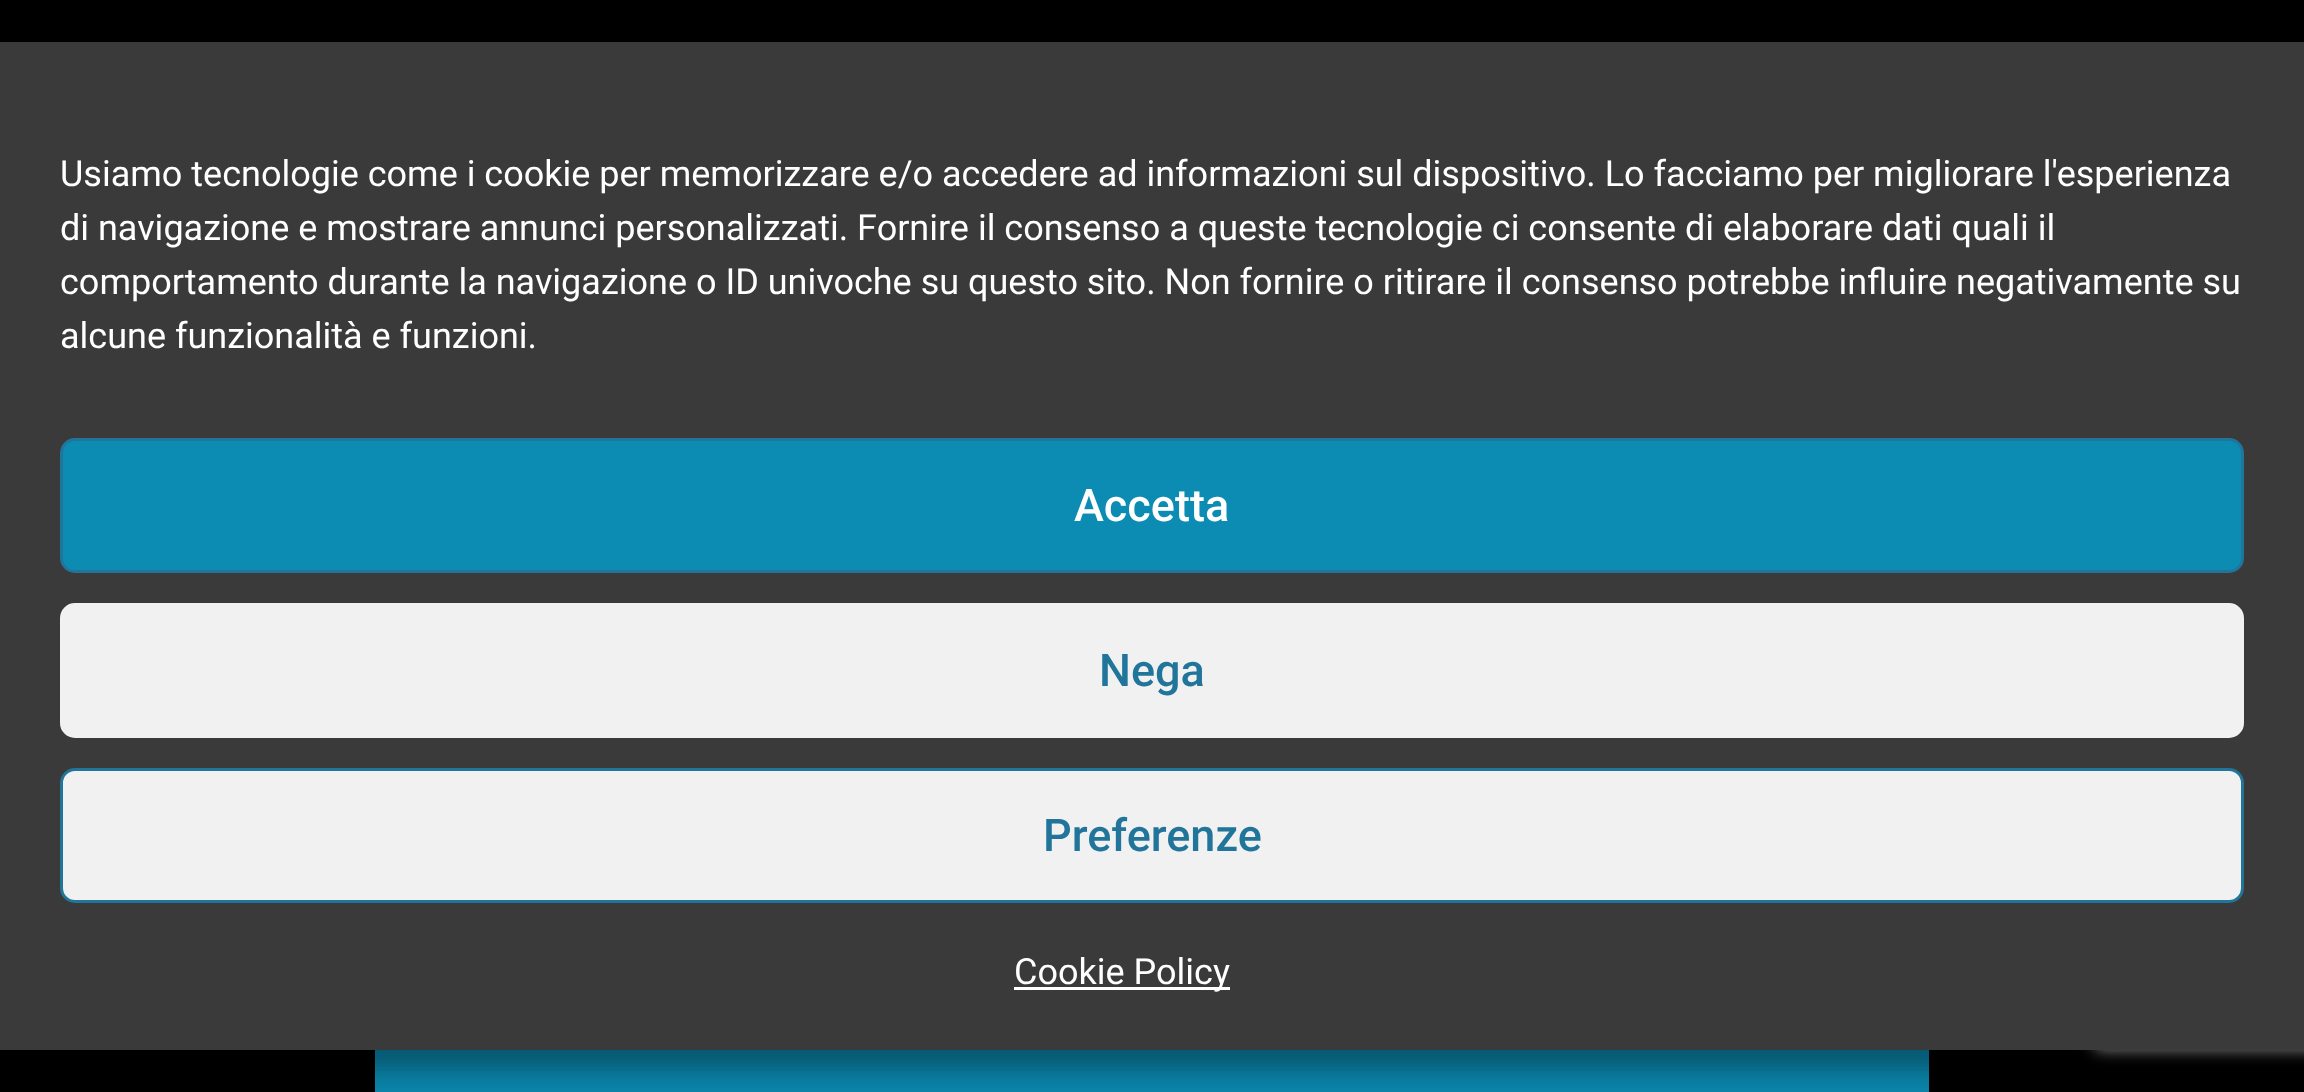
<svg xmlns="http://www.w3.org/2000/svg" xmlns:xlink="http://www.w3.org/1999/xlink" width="2304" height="1092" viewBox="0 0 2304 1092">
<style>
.cls-1{font:36px Roboto;fill:#ffffff}
.cls-2{font:500 45px Roboto;fill:#ffffff}
.cls-3{font:500 45px Roboto;fill:#21759b}
</style>
<rect width="100%" height="100%" fill="#000000"/>
<rect fill="#0c8cb3" x="375" y="1050" width="1554" height="42"/>
<rect fill="#000000" fill-opacity="0.23" filter="blur(9px)" x="0" y="60" width="2304" height="1008"/>
<rect fill="#000000" fill-opacity="0.19" filter="blur(30px)" x="0" y="72" width="2304" height="1008"/>
<rect fill="#808080" filter="blur(7.5px)" x="2094" y="870" width="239" height="180" rx="6"/>
<rect fill="#3a3a3a" x="0" y="42" width="2304" height="1008"/>
<rect fill="#0c8cb3" stroke="#21759b" stroke-width="3" x="61.5" y="439.5" width="2181" height="132" rx="13.5"/>
<rect fill="#f1f1f1" stroke="#f1f1f1" stroke-width="3" x="61.5" y="604.5" width="2181" height="132" rx="13.5"/>
<rect fill="#f1f1f1" stroke="#21759b" stroke-width="3" x="61.5" y="769.5" width="2181" height="132" rx="13.5"/>
<rect fill="#ffffff" x="1014" y="987" width="216" height="3"/>
<text class="cls-1"><tspan x="60" y="186">Usiamo tecnologie come i cookie per memorizzare e/o accedere ad informazioni sul dispositivo. Lo facciamo per migliorare l'esperienza</tspan><tspan x="60" y="240">di navigazione e mostrare annunci personalizzati. Fornire il consenso a queste tecnologie ci consente di elaborare dati quali il</tspan><tspan x="60" y="294">comportamento durante la navigazione o ID univoche su questo sito. Non fornire o ritirare il consenso potrebbe influire negativamente su</tspan><tspan x="60" y="348">alcune funzionalità e funzioni.</tspan></text>
<text class="cls-2" x="1074" y="521">Accetta</text>
<text class="cls-3" x="1099" y="686">Nega</text>
<text class="cls-3" x="1043" y="851">Preferenze</text>
<text class="cls-1" x="1014" y="984">Cookie Policy</text>
</svg>
